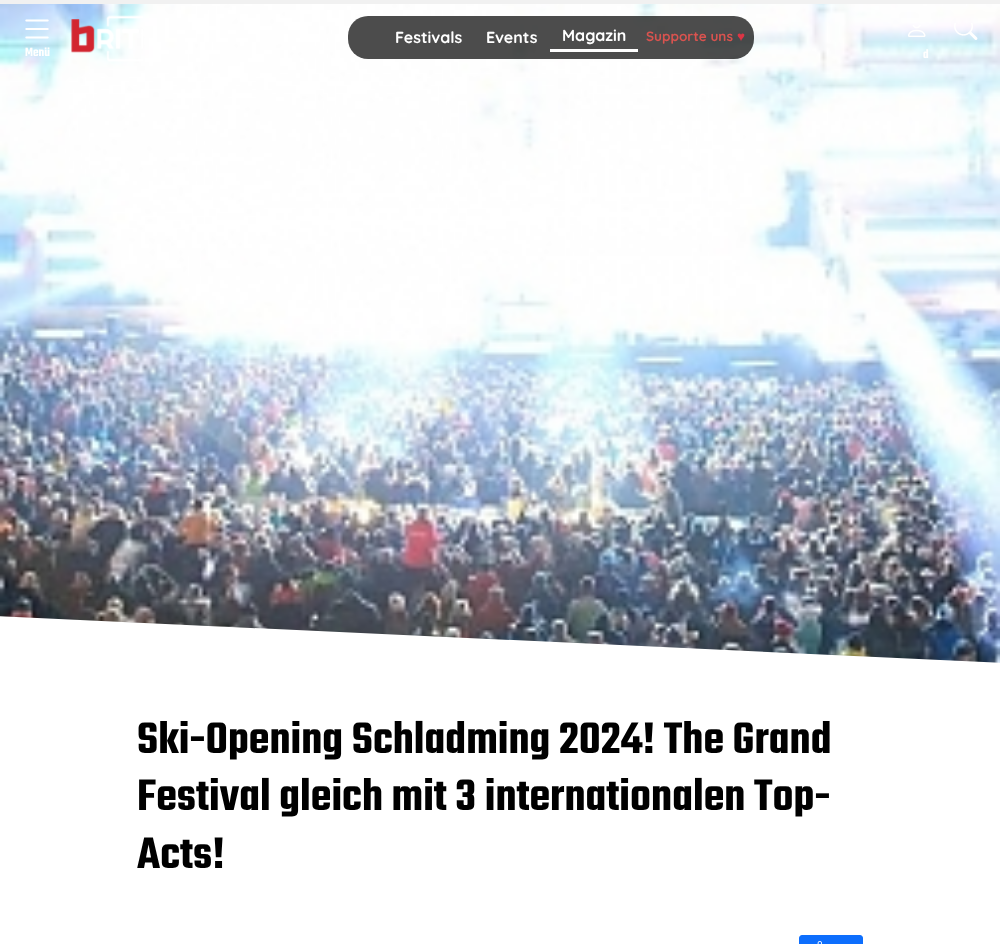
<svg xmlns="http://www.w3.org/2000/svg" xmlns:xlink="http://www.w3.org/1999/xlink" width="1000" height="944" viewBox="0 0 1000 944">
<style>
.cls-1{font:300 16px Quicksand;fill:#ffffff}
.cls-2{font:300 13.5px Quicksand;fill:#d9534f}
.cls-3{font:13.5px Liberation Sans;fill:#dc3545}
.cls-4{font:600 13px Teko;fill:#ffffff}
.cls-5{font:600 48px Teko;fill:#000000}
</style>
<rect width="100%" height="100%" fill="#ffffff"/>
<rect fill="#f1f1f1" x="0" y="0" width="1000" height="4"/>
<image xlink:href="image0.png" x="0" y="4" width="1000" height="659"/>
<rect fill="#000000" fill-opacity="0.7" x="348" y="16" width="406" height="43" rx="20"/>
<rect fill="#ffffff" x="550" y="49" width="88" height="3"/>
<image xlink:href="image1.png" x="25" y="19" width="24" height="20"/>
<image xlink:href="image2.png" x="71" y="15" width="72" height="47"/>
<image xlink:href="image3.png" x="954" y="23" width="24" height="17"/>
<image xlink:href="image4.png" x="908" y="25" width="18" height="12"/>
<rect fill="#0d6efd" stroke="#0d6efd" x="799.5" y="935.5" width="63" height="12" rx="2.5"/>
<image xlink:href="image5.png" x="817" y="941" width="5" height="3"/>
<text class="cls-1" x="395" y="43">Festivals</text>
<text class="cls-1" x="486" y="43">Events</text>
<text class="cls-1" x="562" y="41">Magazin</text>
<text class="cls-2" x="646" y="41">Supporte uns</text>
<text class="cls-3" x="737" y="41">♥</text>
<text class="cls-4" x="25" y="56">Menü</text>
<text class="cls-4" x="923" y="58">d</text>
<text class="cls-5"><tspan x="137" y="753">Ski-Opening Schladming 2024! The Grand</tspan><tspan x="137" y="810">Festival gleich mit 3 internationalen Top-</tspan><tspan x="137" y="868">Acts!</tspan></text>
</svg>
